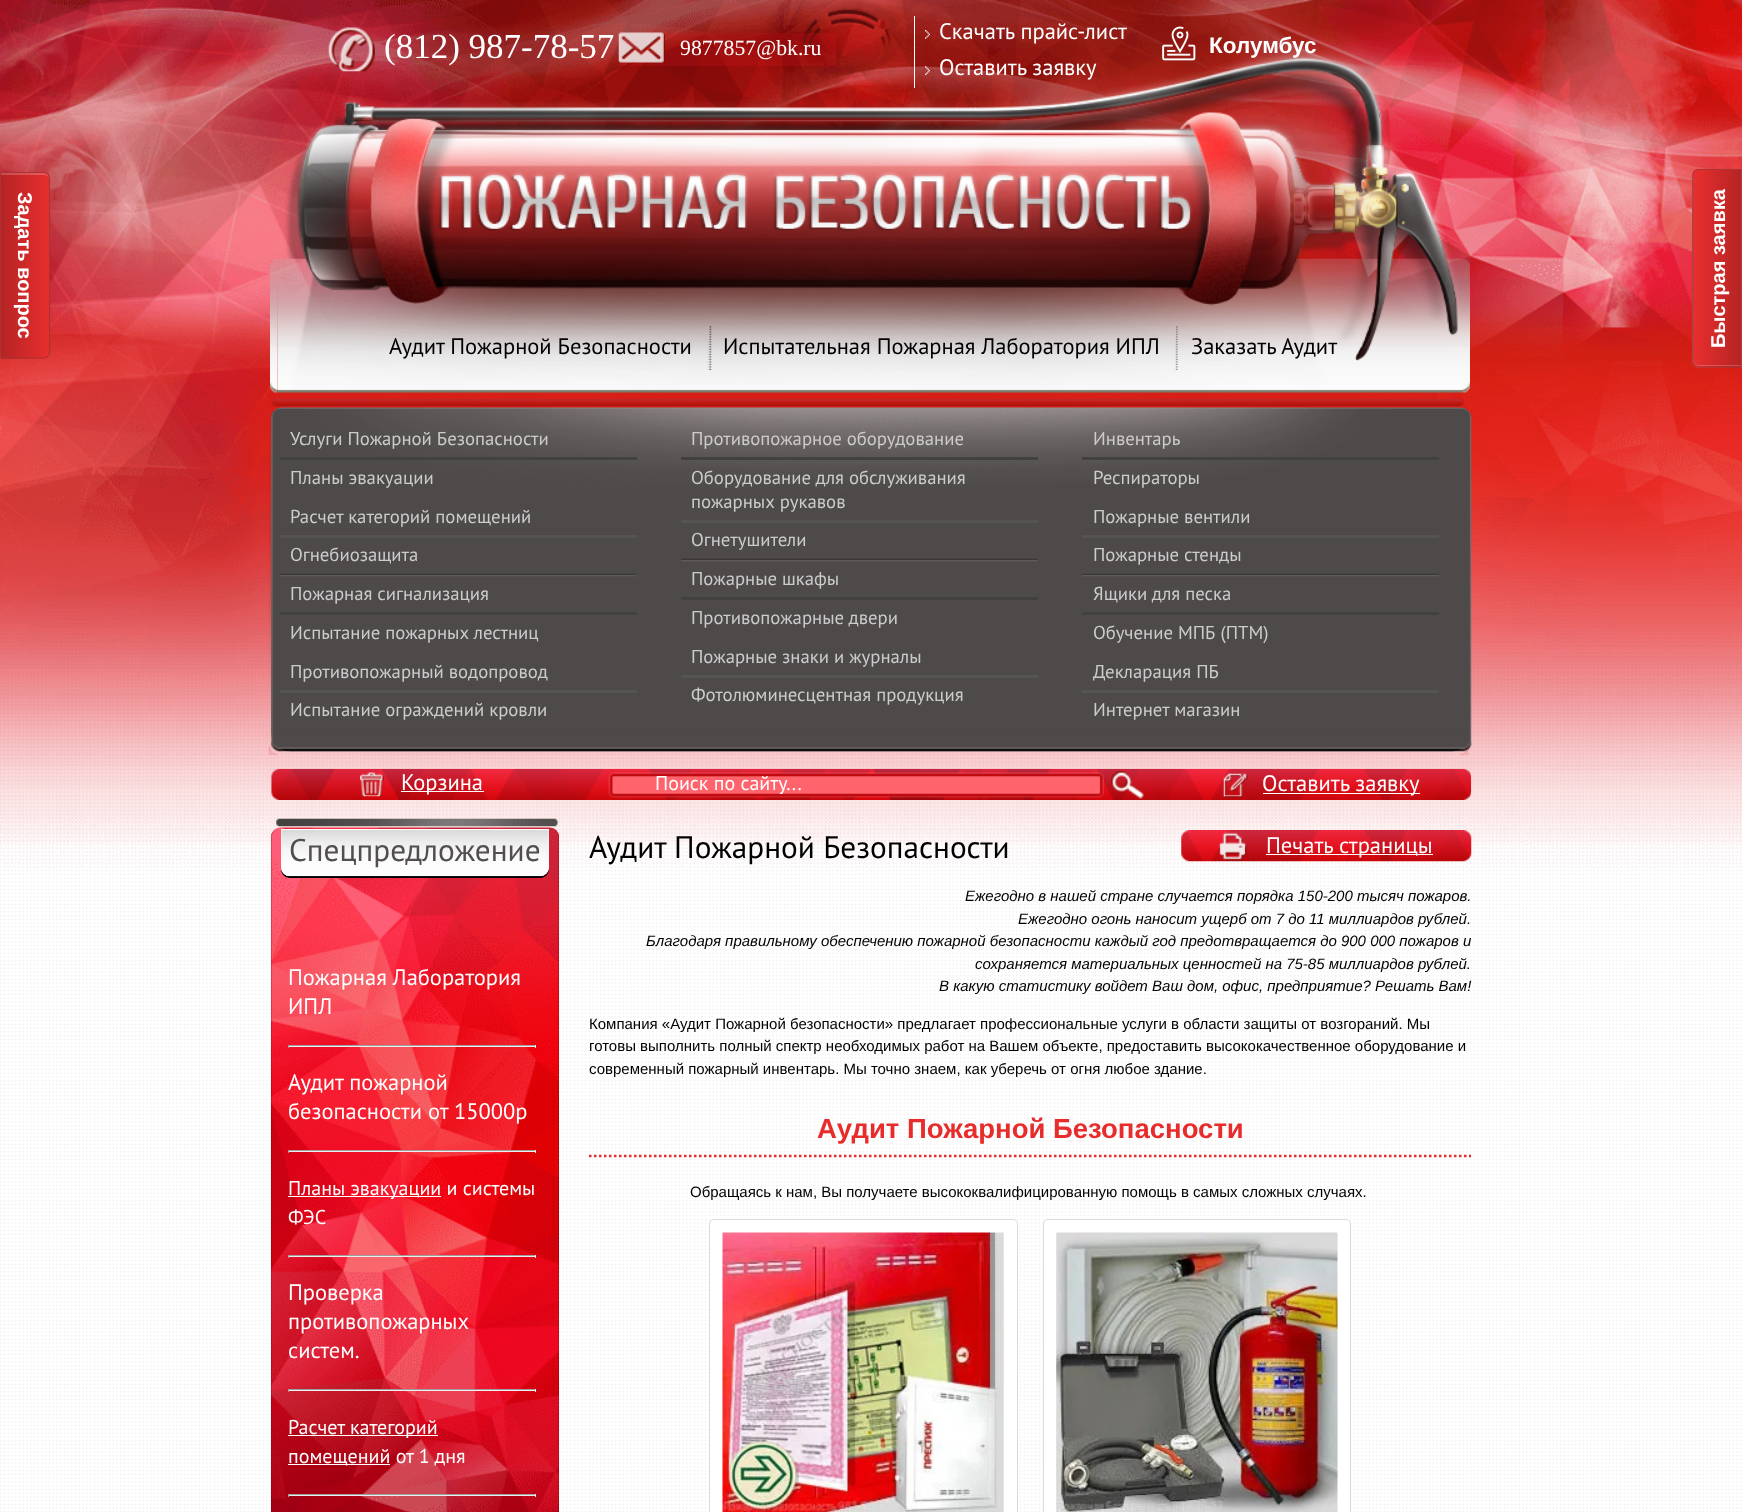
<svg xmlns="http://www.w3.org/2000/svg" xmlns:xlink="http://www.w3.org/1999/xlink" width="1742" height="1512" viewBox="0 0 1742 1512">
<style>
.cls-1{font:bold 20px Liberation Sans;fill:#ffffff}
.cls-2{font:35px Liberation Serif;fill:#ffffff}
.cls-3{font:21.75px Liberation Serif;fill:#ffffff}
.cls-4{font:22.5px PT Sans;fill:#ffffff}
.cls-5{font:bold 22.5px Liberation Sans;fill:#ffffff}
.cls-6{font:22.5px PT Sans;fill:#000000}
.cls-7{font:18.75px PT Sans;fill:#cdcccc}
.cls-8{font:20px PT Sans;fill:#ffffff}
.cls-9{font:31.25px PT Sans;fill:#524e4e}
.cls-10{font:31.25px PT Sans;fill:#000000}
.cls-11{font:italic 15px Liberation Sans;fill:#000000}
.cls-12{font:15px Liberation Sans;fill:#000000}
.cls-13{font:bold 27.5px Liberation Sans;fill:#e82c2c}
</style>
<defs>
<linearGradient id="g1" gradientUnits="userSpaceOnUse" x1="49" y1="265" x2="1.3" y2="265"><stop offset="0" stop-color="#e92e2e"/><stop offset="1" stop-color="#b52424"/></linearGradient>
<linearGradient id="g2" gradientUnits="userSpaceOnUse" x1="1694" y1="268" x2="1741" y2="268"><stop offset="0" stop-color="#e92e2e"/><stop offset="1" stop-color="#b52424"/></linearGradient>
</defs>
<rect width="100%" height="100%" fill="#ffffff"/>
<image xlink:href="image0.png" x="0" y="289" width="1742" height="1223"/>
<image xlink:href="image1.png" x="0" y="0" width="1742" height="843"/>
<image xlink:href="image2.png" x="0" y="0" width="1742" height="870"/>
<path fill="#d15252" d="M50 178V352C50 356 47 359 44 359H0V172H44C47 172 50 175 50 178Z"/>
<path fill="url(#g1)" d="M1 359V172H44C46 172 48 173 49 175V356C48 358 46 359 44 359Z"/>
<path fill="#ffffff" fill-opacity="0.2" d="M49 178C49 175 47 173 44 173H1V175H44C46 175 48 176 49 178Z"/>
<path fill="none" stroke="#ac3333" stroke-width="1.2" d="M49.5 178.5V352.5C49.5 355.5 47 358 44 358H.5V172.5H44C47 172.5 49.5 175 49.5 178.5Z"/>
<image xlink:href="image3.png" x="277" y="52" width="1193" height="341"/>
<image xlink:href="image4.png" x="328" y="27" width="47" height="45"/>
<rect fill="#ef141d" fill-opacity="0.2" x="619" y="33" width="217" height="33"/>
<image xlink:href="image5.png" x="618" y="32" width="47" height="31"/>
<rect fill="#ffffff" x="914" y="16" width="1" height="72"/>
<image xlink:href="image6.png" x="925" y="30" width="5" height="9"/>
<image xlink:href="image7.png" x="925" y="66" width="5" height="9"/>
<image xlink:href="image8.png" x="1162" y="26" width="34" height="35"/>
<image xlink:href="image9.png" x="270" y="258" width="8" height="135"/>
<image xlink:href="image10.png" x="707" y="326" width="5" height="44"/>
<image xlink:href="image11.png" x="1175" y="326" width="3" height="44"/>
<path fill="#4e4a4a" d="M281 408H1461C1466.5 408 1471 412.5 1471 418V732C1471 742.5 1462.5 751 1452 751H290C279.5 751 271 742.5 271 732V418C271 412.5 275.5 408 281 408Z"/>
<image xlink:href="image12.png" x="271" y="407" width="1201" height="345"/>
<image xlink:href="image13.png" x="271" y="398" width="1193" height="9"/>
<rect fill="#424040" x="280" y="457" width="357" height="3"/>
<rect fill="#555353" x="280" y="535" width="357" height="3"/>
<image xlink:href="image14.png" x="280" y="573" width="357" height="4"/>
<rect fill="#424040" x="280" y="612" width="357" height="3"/>
<rect fill="#555353" x="280" y="690" width="357" height="3"/>
<rect fill="#424040" x="681" y="457" width="357" height="3"/>
<rect fill="#555353" x="681" y="520" width="357" height="3"/>
<image xlink:href="image15.png" x="681" y="558" width="357" height="4"/>
<rect fill="#424040" x="681" y="597" width="357" height="3"/>
<rect fill="#555353" x="681" y="675" width="357" height="3"/>
<rect fill="#424040" x="1082" y="457" width="357" height="3"/>
<rect fill="#555353" x="1082" y="535" width="357" height="3"/>
<image xlink:href="image16.png" x="1082" y="573" width="357" height="4"/>
<rect fill="#424040" x="1082" y="612" width="357" height="3"/>
<rect fill="#555353" x="1082" y="690" width="357" height="3"/>
<image xlink:href="image17.png" x="271" y="733" width="1201" height="19"/>
<image xlink:href="image18.png" x="271" y="768" width="1201" height="32"/>
<image xlink:href="image19.png" x="360" y="772" width="24" height="25"/>
<rect fill="#ffffff" x="401" y="791" width="83" height="1"/>
<image xlink:href="image20.png" x="608" y="772" width="496" height="26"/>
<image xlink:href="image21.png" x="1111" y="771" width="33" height="28"/>
<image xlink:href="image22.png" x="1223" y="773" width="25" height="25"/>
<rect fill="#ffffff" x="1263" y="793" width="157" height="1"/>
<image xlink:href="image23.png" x="276" y="818" width="282" height="9"/>
<rect fill="#710001" x="271" y="828" width="288" height="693" rx="9"/>
<image xlink:href="image24.png" x="271" y="827" width="288" height="685"/>
<path fill="#000000" d="M281 830V869C281 874 285 878 290 878H540C545 878 549 874 549 869V830V868C549 872 545 876 540 876H290C285 876 281 872 281 868Z"/>
<path fill="#fefefe" d="M281 829H549V867C549 872 545 876 540 876H290C285 876 281 872 281 867Z"/>
<image xlink:href="image25.png" x="281" y="830" width="268" height="47"/>
<rect fill="#9f9f9f" x="288" y="1045" width="248" height="1"/>
<rect fill="#eeeeee" x="535" y="1045" width="1" height="3"/>
<rect fill="#eeeeee" x="288" y="1046" width="248" height="1"/>
<rect fill="#9f9f9f" x="288" y="1045" width="1" height="3"/>
<rect fill="#9f9f9f" x="288" y="1150" width="248" height="1"/>
<rect fill="#eeeeee" x="535" y="1150" width="1" height="3"/>
<rect fill="#eeeeee" x="288" y="1151" width="248" height="1"/>
<rect fill="#9f9f9f" x="288" y="1150" width="1" height="3"/>
<rect fill="#ffffff" x="288" y="1196" width="153" height="1"/>
<rect fill="#9f9f9f" x="288" y="1255" width="248" height="1"/>
<rect fill="#eeeeee" x="535" y="1255" width="1" height="3"/>
<rect fill="#eeeeee" x="288" y="1256" width="248" height="1"/>
<rect fill="#9f9f9f" x="288" y="1255" width="1" height="3"/>
<rect fill="#9f9f9f" x="288" y="1389" width="248" height="1"/>
<rect fill="#eeeeee" x="535" y="1389" width="1" height="3"/>
<rect fill="#eeeeee" x="288" y="1390" width="248" height="1"/>
<rect fill="#9f9f9f" x="288" y="1389" width="1" height="3"/>
<rect fill="#ffffff" x="288" y="1435" width="150" height="1"/>
<rect fill="#ffffff" x="288" y="1464" width="102" height="1"/>
<rect fill="#9f9f9f" x="288" y="1494" width="248" height="1"/>
<rect fill="#eeeeee" x="535" y="1494" width="1" height="3"/>
<rect fill="#eeeeee" x="288" y="1495" width="248" height="1"/>
<rect fill="#9f9f9f" x="288" y="1494" width="1" height="3"/>
<path fill="none" stroke="#e82c2c" stroke-width="2.5" stroke-dasharray="2.5 2.5" d="M589 1156H1471"/>
<rect fill="#ffffff" stroke="#dadada" x="709.5" y="1219.5" width="308" height="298" rx="4.5"/>
<image xlink:href="image26.png" x="722" y="1232" width="282" height="280"/>
<rect fill="#ffffff" stroke="#dadada" x="1043.5" y="1219.5" width="307" height="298" rx="4.5"/>
<image xlink:href="image27.png" x="1056" y="1232" width="282" height="280"/>
<image xlink:href="image28.png" x="1181" y="830" width="291" height="32"/>
<rect fill="#ffffff" x="1266" y="854" width="167" height="1"/>
<path fill="#d15252" d="M1692 361V175C1692 172 1695 169 1699 169H1742V368H1699C1695 368 1692 365 1692 361Z"/>
<path fill="url(#g2)" d="M1741 368H1699C1697 368 1695 367 1694 365V171L1697 169H1741Z"/>
<path fill="#ffffff" fill-opacity="0.2" d="M1694 360C1694 363 1696 365 1699 365H1741V170V366H1706C1702 366 1694 368 1694 361V173V174Z"/>
<path fill="none" stroke="#ac3333" stroke-width="1.2" d="M1693 361.5V175C1693 172 1695.5 169.5 1698.5 169.5H1742V367H1698.5C1695.5 367 1693 364.5 1693 361.5Z"/>
<text class="cls-1" x="18" y="192" transform="rotate(90 18 192)">Задать вопрос</text>
<text class="cls-2" x="384" y="58">(812) 987-78-57</text>
<text class="cls-3" x="680" y="55">9877857@bk.ru</text>
<text class="cls-4"><tspan x="939" y="39">Скачать прайс-лист</tspan><tspan x="939" y="75">Оставить заявку</tspan></text>
<text class="cls-5" x="1209" y="53">Колумбус</text>
<text class="cls-6" x="389" y="354">Аудит Пожарной Безопасности</text>
<text class="cls-6" x="723" y="354">Испытательная Пожарная Лаборатория ИПЛ</text>
<text class="cls-6" x="1191" y="354">Заказать Аудит</text>
<text class="cls-7" x="290" y="445">Услуги Пожарной Безопасности</text>
<text class="cls-7" x="290" y="484">Планы эвакуации</text>
<text class="cls-7" x="290" y="523">Расчет категорий помещений</text>
<text class="cls-7" x="290" y="561">Огнебиозащита</text>
<text class="cls-7" x="290" y="600">Пожарная сигнализация</text>
<text class="cls-7" x="290" y="639">Испытание пожарных лестниц</text>
<text class="cls-7" x="290" y="678">Противопожарный водопровод</text>
<text class="cls-7" x="290" y="716">Испытание ограждений кровли</text>
<text class="cls-7" x="691" y="445">Противопожарное оборудование</text>
<text class="cls-7"><tspan x="691" y="484">Оборудование для обслуживания</tspan><tspan x="691" y="508">пожарных рукавов</tspan></text>
<text class="cls-7" x="691" y="546">Огнетушители</text>
<text class="cls-7" x="691" y="585">Пожарные шкафы</text>
<text class="cls-7" x="691" y="624">Противопожарные двери</text>
<text class="cls-7" x="691" y="663">Пожарные знаки и журналы</text>
<text class="cls-7" x="691" y="701">Фотолюминесцентная продукция</text>
<text class="cls-7" x="1093" y="445">Инвентарь</text>
<text class="cls-7" x="1093" y="484">Респираторы</text>
<text class="cls-7" x="1093" y="523">Пожарные вентили</text>
<text class="cls-7" x="1093" y="561">Пожарные стенды</text>
<text class="cls-7" x="1093" y="600">Ящики для песка</text>
<text class="cls-7" x="1093" y="639">Обучение МПБ (ПТМ)</text>
<text class="cls-7" x="1093" y="678">Декларация ПБ</text>
<text class="cls-7" x="1093" y="716">Интернет магазин</text>
<text class="cls-4" x="401" y="790">Корзина</text>
<text class="cls-8" x="655" y="790">Поиск по сайту...</text>
<text class="cls-4" x="1262" y="791">Оставить заявку</text>
<text class="cls-9" x="289" y="861">Спецпредложение</text>
<text class="cls-4"><tspan x="288" y="985">Пожарная Лаборатория</tspan><tspan x="288" y="1014">ИПЛ</tspan></text>
<text class="cls-4"><tspan x="288" y="1090">Аудит пожарной</tspan><tspan x="288" y="1119">безопасности от 15000р</tspan></text>
<text class="cls-8"><tspan x="288" y="1195">Планы эвакуации и системы</tspan><tspan x="288" y="1224">ФЭС</tspan></text>
<text class="cls-4"><tspan x="288" y="1300">Проверка</tspan><tspan x="288" y="1329">противопожарных</tspan><tspan x="288" y="1358">систем.</tspan></text>
<text class="cls-8"><tspan x="288" y="1434">Расчет категорий</tspan><tspan x="288" y="1463">помещений от 1 дня</tspan></text>
<text class="cls-10" x="589" y="858">Аудит Пожарной Безопасности</text>
<text class="cls-11" x="965" y="901">Ежегодно в нашей стране случается порядка 150-200 тысяч пожаров.</text>
<text class="cls-11" x="1018" y="924">Ежегодно огонь наносит ущерб от 7 до 11 миллиардов рублей.</text>
<text class="cls-11" x="646" y="946">Благодаря правильному обеспечению пожарной безопасности каждый год предотвращается до 900 000 пожаров и</text>
<text class="cls-11" x="975" y="969">сохраняется материальных ценностей на 75-85 миллиардов рублей.</text>
<text class="cls-11" x="939" y="991">В какую статистику войдет Ваш дом, офис, предприятие? Решать Вам!</text>
<text class="cls-12"><tspan x="589" y="1029">Компания «Аудит Пожарной безопасности» предлагает профессиональные услуги в области защиты от возгораний. Мы</tspan><tspan x="589" y="1051">готовы выполнить полный спектр необходимых работ на Вашем объекте, предоставить высококачественное оборудование и</tspan><tspan x="589" y="1074">современный пожарный инвентарь. Мы точно знаем, как уберечь от огня любое здание.</tspan></text>
<text class="cls-13" x="817" y="1138">Аудит Пожарной Безопасности</text>
<text class="cls-12" x="690" y="1197">Обращаясь к нам, Вы получаете высококвалифицированную помощь в самых сложных случаях.</text>
<text class="cls-4" x="1266" y="853">Печать страницы</text>
<text class="cls-1" x="1725" y="348" transform="rotate(-90 1725 348)">Быстрая заявка</text>
</svg>
